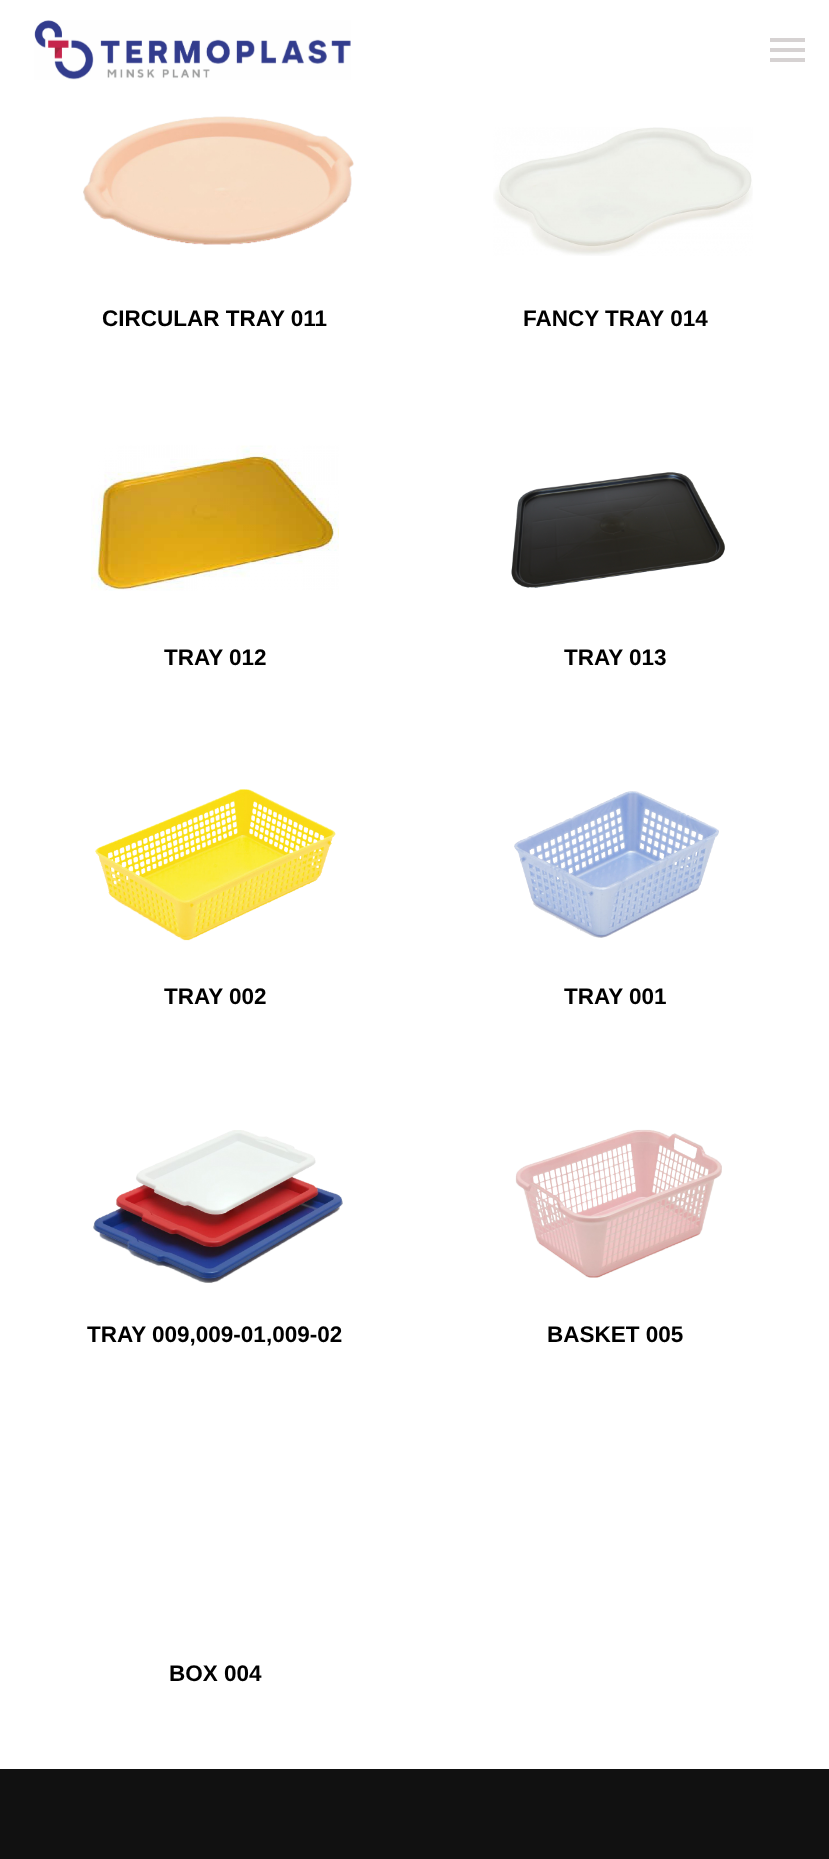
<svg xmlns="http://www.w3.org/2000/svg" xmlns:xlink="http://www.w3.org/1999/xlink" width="829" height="1859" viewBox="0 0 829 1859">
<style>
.cls-1{font:bold 22.5px Liberation Sans;fill:#000000}
</style>
<rect width="100%" height="100%" fill="#ffffff"/>
<image xlink:href="image0.png" x="34" y="20" width="317" height="60"/>
<rect fill="#d6d2d2" x="770" y="38" width="35" height="4"/>
<rect fill="#d6d2d2" x="770" y="48" width="35" height="4"/>
<rect fill="#d6d2d2" x="770" y="58" width="35" height="4"/>
<image xlink:href="image1.png" x="83" y="116" width="271" height="129"/>
<image xlink:href="image2.png" x="493" y="127" width="260" height="129"/>
<image xlink:href="image3.png" x="91" y="445" width="248" height="146"/>
<image xlink:href="image4.png" x="511" y="472" width="214" height="116"/>
<image xlink:href="image5.png" x="95" y="789" width="241" height="152"/>
<image xlink:href="image6.png" x="514" y="791" width="205" height="147"/>
<image xlink:href="image7.png" x="93" y="1130" width="250" height="153"/>
<image xlink:href="image8.png" x="515" y="1129" width="207" height="149"/>
<rect fill="#111111" x="0" y="1769" width="829" height="90"/>
<text class="cls-1" x="102" y="326">CIRCULAR TRAY 011</text>
<text class="cls-1" x="523" y="326">FANCY TRAY 014</text>
<text class="cls-1" x="164" y="665">TRAY 012</text>
<text class="cls-1" x="564" y="665">TRAY 013</text>
<text class="cls-1" x="164" y="1004">TRAY 002</text>
<text class="cls-1" x="564" y="1004">TRAY 001</text>
<text class="cls-1" x="87" y="1342">TRAY 009,009-01,009-02</text>
<text class="cls-1" x="547" y="1342">BASKET 005</text>
<text class="cls-1" x="169" y="1681">BOX 004</text>
</svg>
